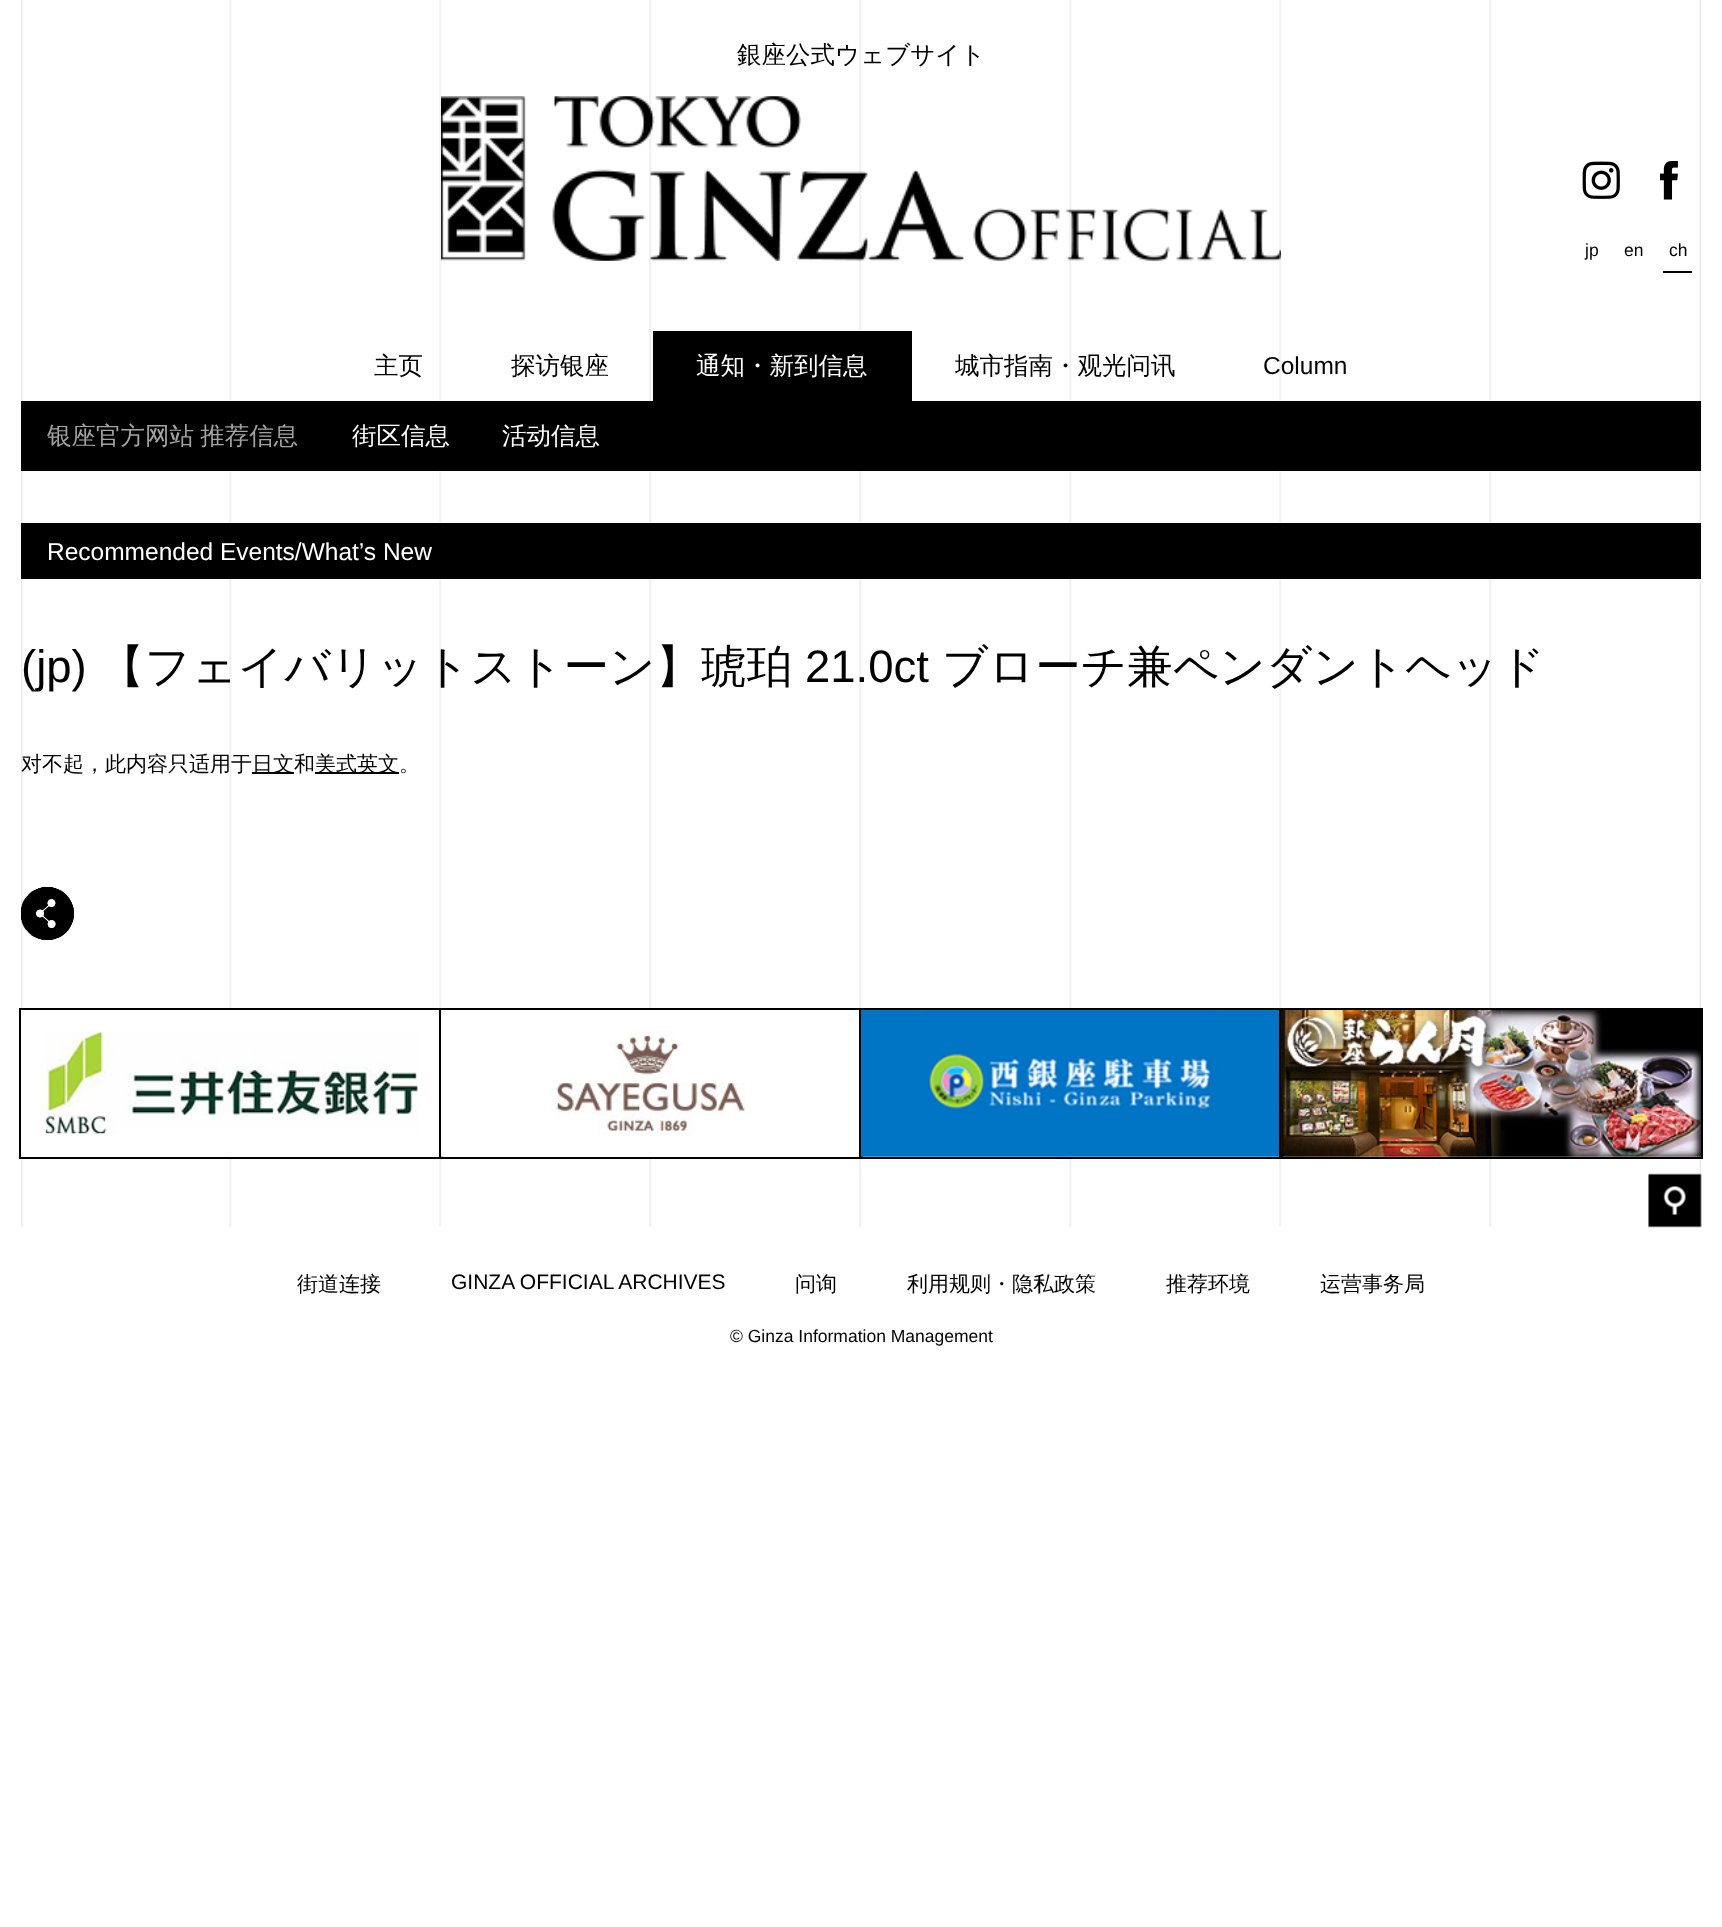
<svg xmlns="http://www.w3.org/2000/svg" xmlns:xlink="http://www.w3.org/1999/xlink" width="1722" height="1927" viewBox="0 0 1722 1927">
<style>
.cls-1{font:500 24.5px WenQuanYi Zen Hei;fill:#000000}
.cls-2{font:17.5px Liberation Sans;fill:#000000}
.cls-3{font:500 24.5px WenQuanYi Zen Hei;fill:#ffffff}
.cls-4{font:500 24.5px WenQuanYi Zen Hei;fill:#a3a3a3}
.cls-5{font:24.5px Liberation Sans;fill:#000000}
.cls-6{font:24.5px Liberation Sans;fill:#ffffff}
.cls-7{font:45.5px Liberation Sans;fill:#000000}
.cls-8{font:500 45.5px WenQuanYi Zen Hei;fill:#000000}
.cls-9{font:500 21px WenQuanYi Zen Hei;fill:#000000}
.cls-10{font:21px Liberation Sans;fill:#000000}
</style>
<rect width="100%" height="100%" fill="#ffffff"/>
<image xlink:href="image0.png" x="21" y="0" width="1680" height="1008"/>
<image xlink:href="image1.png" x="441" y="96" width="840" height="165"/>
<image xlink:href="image2.png" x="1582" y="161" width="38" height="38"/>
<image xlink:href="image3.png" x="1660" y="161" width="18" height="39"/>
<rect fill="#000000" x="1663" y="271" width="29" height="2"/>
<rect fill="#000000" x="653" y="331" width="259" height="70"/>
<rect fill="#000000" x="21" y="401" width="1680" height="70"/>
<rect fill="#000000" x="21" y="523" width="1680" height="56"/>
<rect fill="#000000" x="252" y="772" width="42" height="2"/>
<rect fill="#000000" x="315" y="772" width="84" height="2"/>
<image xlink:href="image4.png" x="21" y="887" width="53" height="53"/>
<image xlink:href="image5.png" x="21" y="887" width="53" height="53"/>
<image xlink:href="image6.png" x="21" y="887" width="53" height="53"/>
<image xlink:href="image7.png" x="21" y="887" width="53" height="53"/>
<image xlink:href="image8.png" x="21" y="887" width="53" height="53"/>
<image xlink:href="image9.png" x="21" y="888" width="53" height="51"/>
<image xlink:href="image10.png" x="21" y="1159" width="1680" height="16"/>
<image xlink:href="image11.png" x="21" y="1010" width="418" height="124"/>
<rect fill="none" stroke="#000000" stroke-width="2" x="20" y="1009" width="422" height="149"/>
<image xlink:href="image12.png" x="441" y="1010" width="418" height="147"/>
<rect fill="none" stroke="#000000" stroke-width="2" x="440" y="1009" width="422" height="149"/>
<image xlink:href="image13.png" x="861" y="1010" width="418" height="147"/>
<rect fill="none" stroke="#000000" stroke-width="2" x="860" y="1009" width="422" height="149"/>
<image xlink:href="image14.png" x="1281" y="1010" width="420" height="147"/>
<rect fill="none" stroke="#000000" stroke-width="2" x="1280" y="1009" width="422" height="149"/>
<image xlink:href="image15.png" x="21" y="1174" width="1680" height="53"/>
<image xlink:href="image16.png" x="1648" y="1173" width="54" height="55"/>
<text class="cls-1" x="737" y="63">銀座公式ウェブサイト</text>
<text class="cls-2" x="1585" y="256">jp</text>
<text class="cls-2" x="1624" y="256">en</text>
<text class="cls-2" x="1669" y="256">ch</text>
<text class="cls-3" x="696" y="374">通知・新到信息</text>
<text class="cls-4" x="47" y="444" word-spacing="-1">银座官方网站 推荐信息</text>
<text class="cls-3" x="352" y="444">街区信息</text>
<text class="cls-3" x="502" y="444">活动信息</text>
<text class="cls-1" x="374" y="374">主页</text>
<text class="cls-1" x="511" y="374">探访银座</text>
<text class="cls-1" x="955" y="374">城市指南・观光问讯</text>
<text class="cls-5" x="1263" y="374">Column</text>
<text class="cls-6" x="47" y="560">Recommended Events/What’s New</text>
<text class="cls-7" x="21" y="682">(jp)</text>
<text class="cls-8" x="99" y="682">【フェイバリットストーン】琥珀</text>
<text class="cls-7" x="805" y="682">21.0ct</text>
<text class="cls-8" x="942" y="682">ブローチ兼ペンダントヘッド</text>
<text class="cls-9" x="21" y="771">对不起，此内容只适用于</text>
<text class="cls-9" x="252" y="771">日文和</text>
<text class="cls-9" x="315" y="771">美式英文。</text>
<text class="cls-9" x="297" y="1291">街道连接</text>
<text class="cls-10" x="451" y="1289">GINZA OFFICIAL ARCHIVES</text>
<text class="cls-9" x="795" y="1291">问询</text>
<text class="cls-9" x="907" y="1291">利用规则・隐私政策</text>
<text class="cls-9" x="1166" y="1291">推荐环境</text>
<text class="cls-9" x="1320" y="1291">运营事务局</text>
<text class="cls-2" x="730" y="1342">© Ginza Information Management</text>
</svg>
